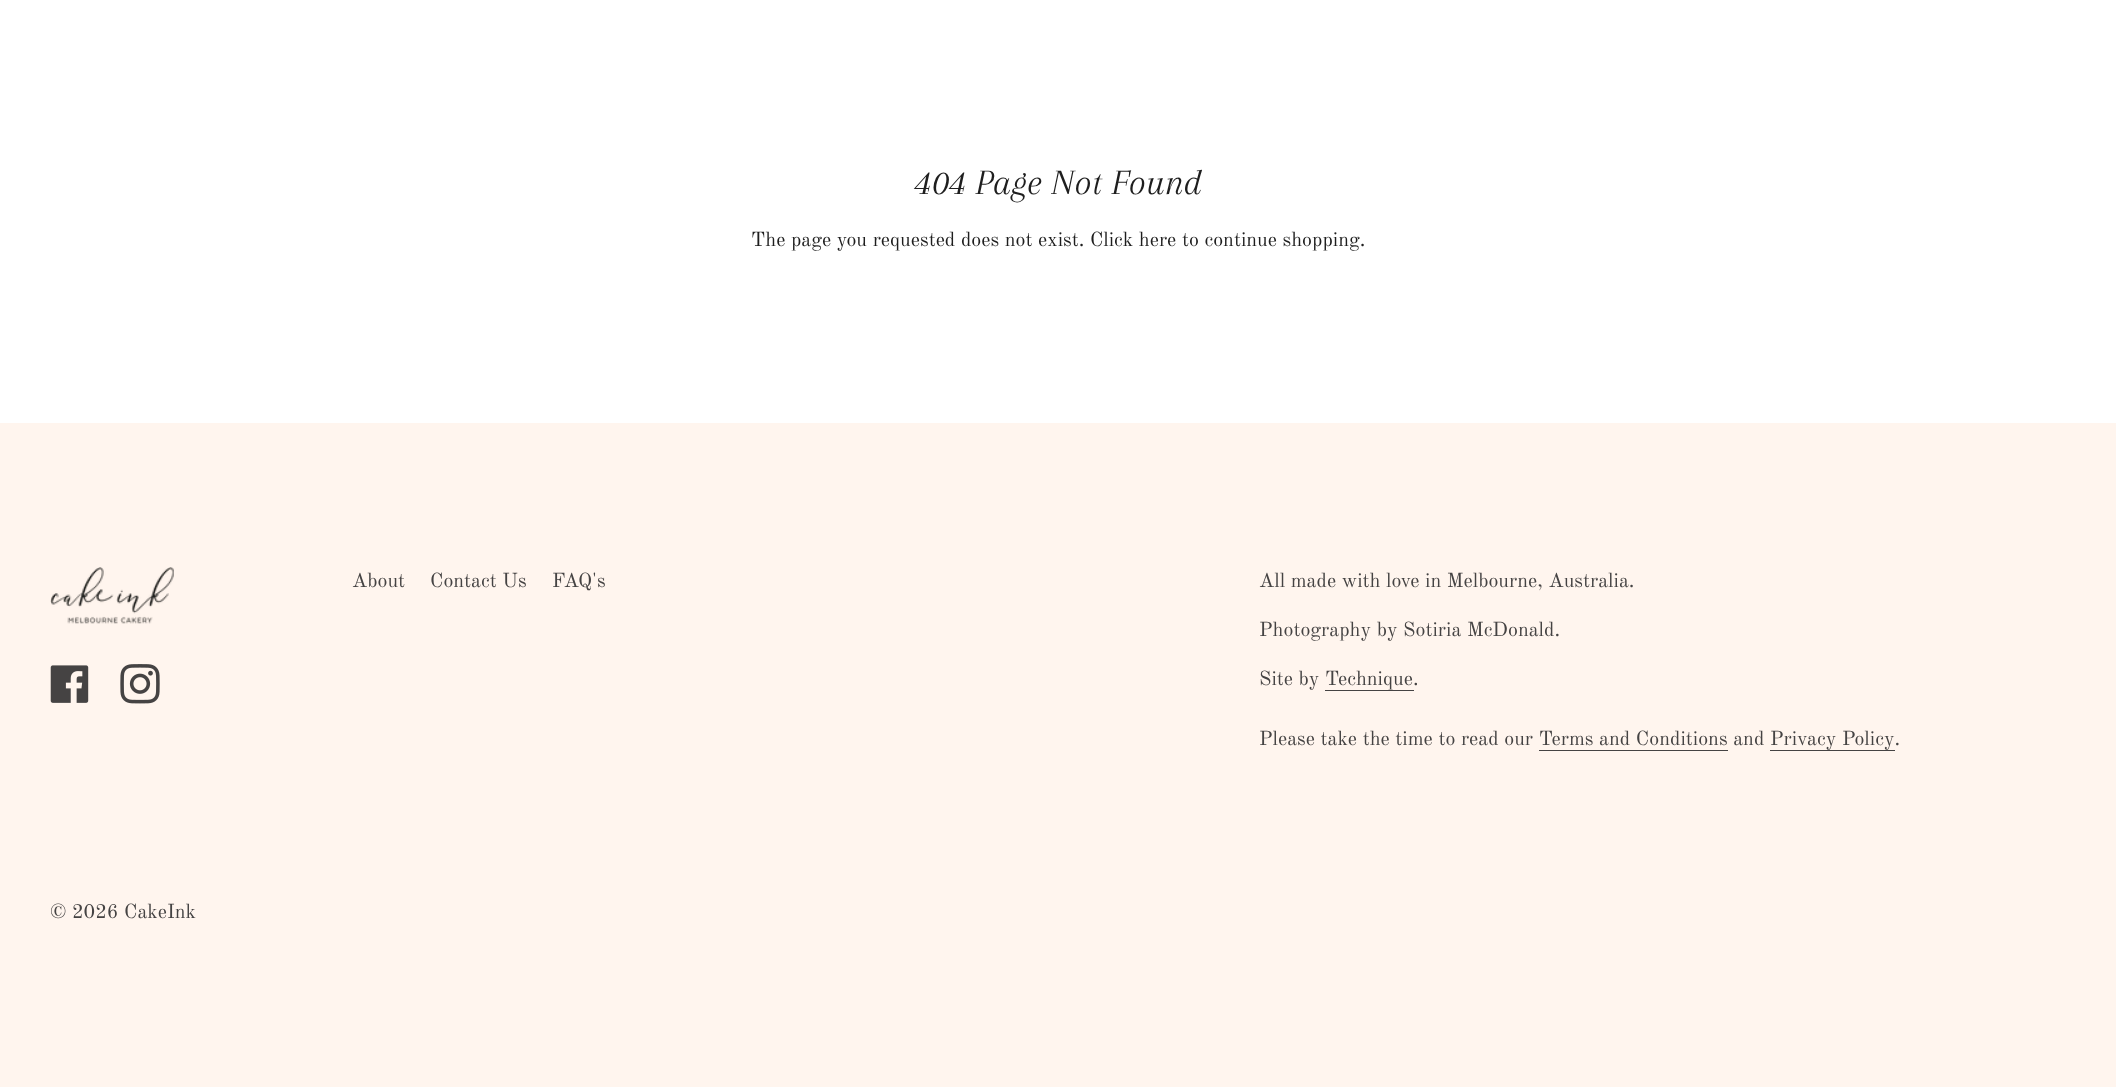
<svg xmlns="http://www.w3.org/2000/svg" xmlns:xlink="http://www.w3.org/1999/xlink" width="2116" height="1087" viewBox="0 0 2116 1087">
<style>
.cls-1{font:italic 37px Arapey;fill:#1e1e1e}
.cls-2{font:20px Old Standard TT;fill:#1e1e1e}
.cls-3{font:20px Old Standard TT;fill:#454343}
</style>
<rect width="100%" height="100%" fill="#ffffff"/>
<rect fill="#fff5ee" x="0" y="423" width="2116" height="664"/>
<image xlink:href="image0.png" x="50" y="567" width="124" height="57"/>
<image xlink:href="image1.png" x="50" y="665" width="39" height="38"/>
<image xlink:href="image2.png" x="120" y="664" width="40" height="40"/>
<rect fill="#454343" x="1325" y="690" width="89" height="1"/>
<rect fill="#454343" x="1539" y="750" width="189" height="1"/>
<rect fill="#454343" x="1770" y="750" width="125" height="1"/>
<text class="cls-1" x="915" y="194">404 Page Not Found</text>
<text class="cls-2" x="751" y="246">The page you requested does not exist. Click here to continue shopping.</text>
<text class="cls-3" x="352" y="587">About</text>
<text class="cls-3" x="430" y="587">Contact Us</text>
<text class="cls-3" x="552" y="587">FAQ's</text>
<text class="cls-3" x="1259" y="587">All made with love in Melbourne, Australia.</text>
<text class="cls-3" x="1259" y="636">Photography by Sotiria McDonald.</text>
<text class="cls-3" x="1259" y="685">Site by Technique.</text>
<text class="cls-3" x="1259" y="745">Please take the time to read our Terms and Conditions and Privacy Policy.</text>
<text class="cls-3" x="50" y="918">© 2026 CakeInk</text>
</svg>
